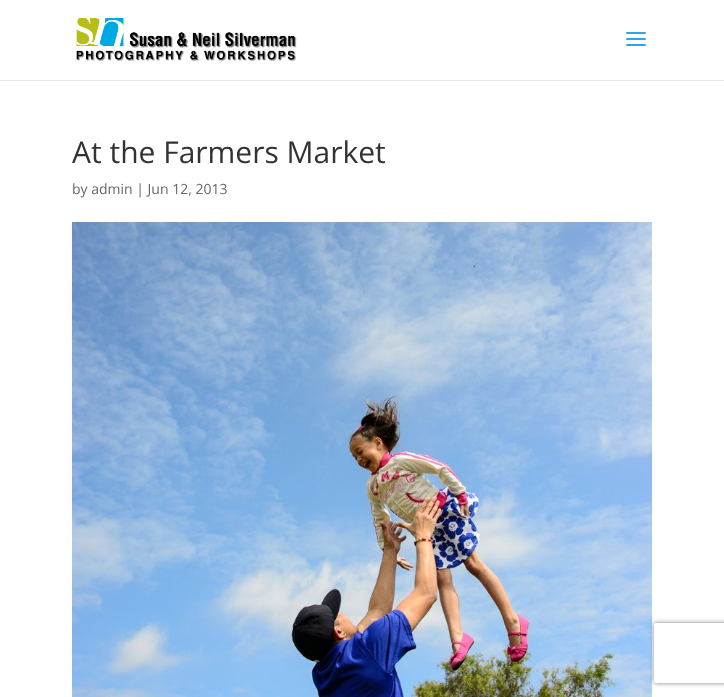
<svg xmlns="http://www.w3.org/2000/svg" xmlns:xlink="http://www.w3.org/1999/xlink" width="724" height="697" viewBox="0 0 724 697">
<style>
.cls-1{font:30px Open Sans;fill:#333333}
.cls-2{font:14px Open Sans;fill:#666666}
</style>
<defs>
<clipPath id="clip1"><path d="M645 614H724V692H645ZM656 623H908C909 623 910 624 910 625V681C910 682 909 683 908 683H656C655 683 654 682 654 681V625C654 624 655 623 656 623Z" clip-rule="evenodd"/></clipPath>
</defs>
<rect width="100%" height="100%" fill="#ffffff"/>
<rect fill="#e6e6e6" x="0" y="80" width="724" height="1"/>
<image xlink:href="image0.png" x="76" y="18" width="221" height="43"/>
<image xlink:href="image1.png" x="626" y="32" width="20" height="14"/>
<image xlink:href="image2.png" x="72" y="222" width="580" height="475"/>
<g clip-path="url(#clip1)">
<rect fill="#808080" filter="blur(2.5px)" x="654" y="623" width="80" height="60" rx="2"/>
</g>
<text class="cls-1" x="72" y="163">At the Farmers Market</text>
<text class="cls-2" x="72" y="194">by admin | Jun 12, 2013</text>
</svg>
